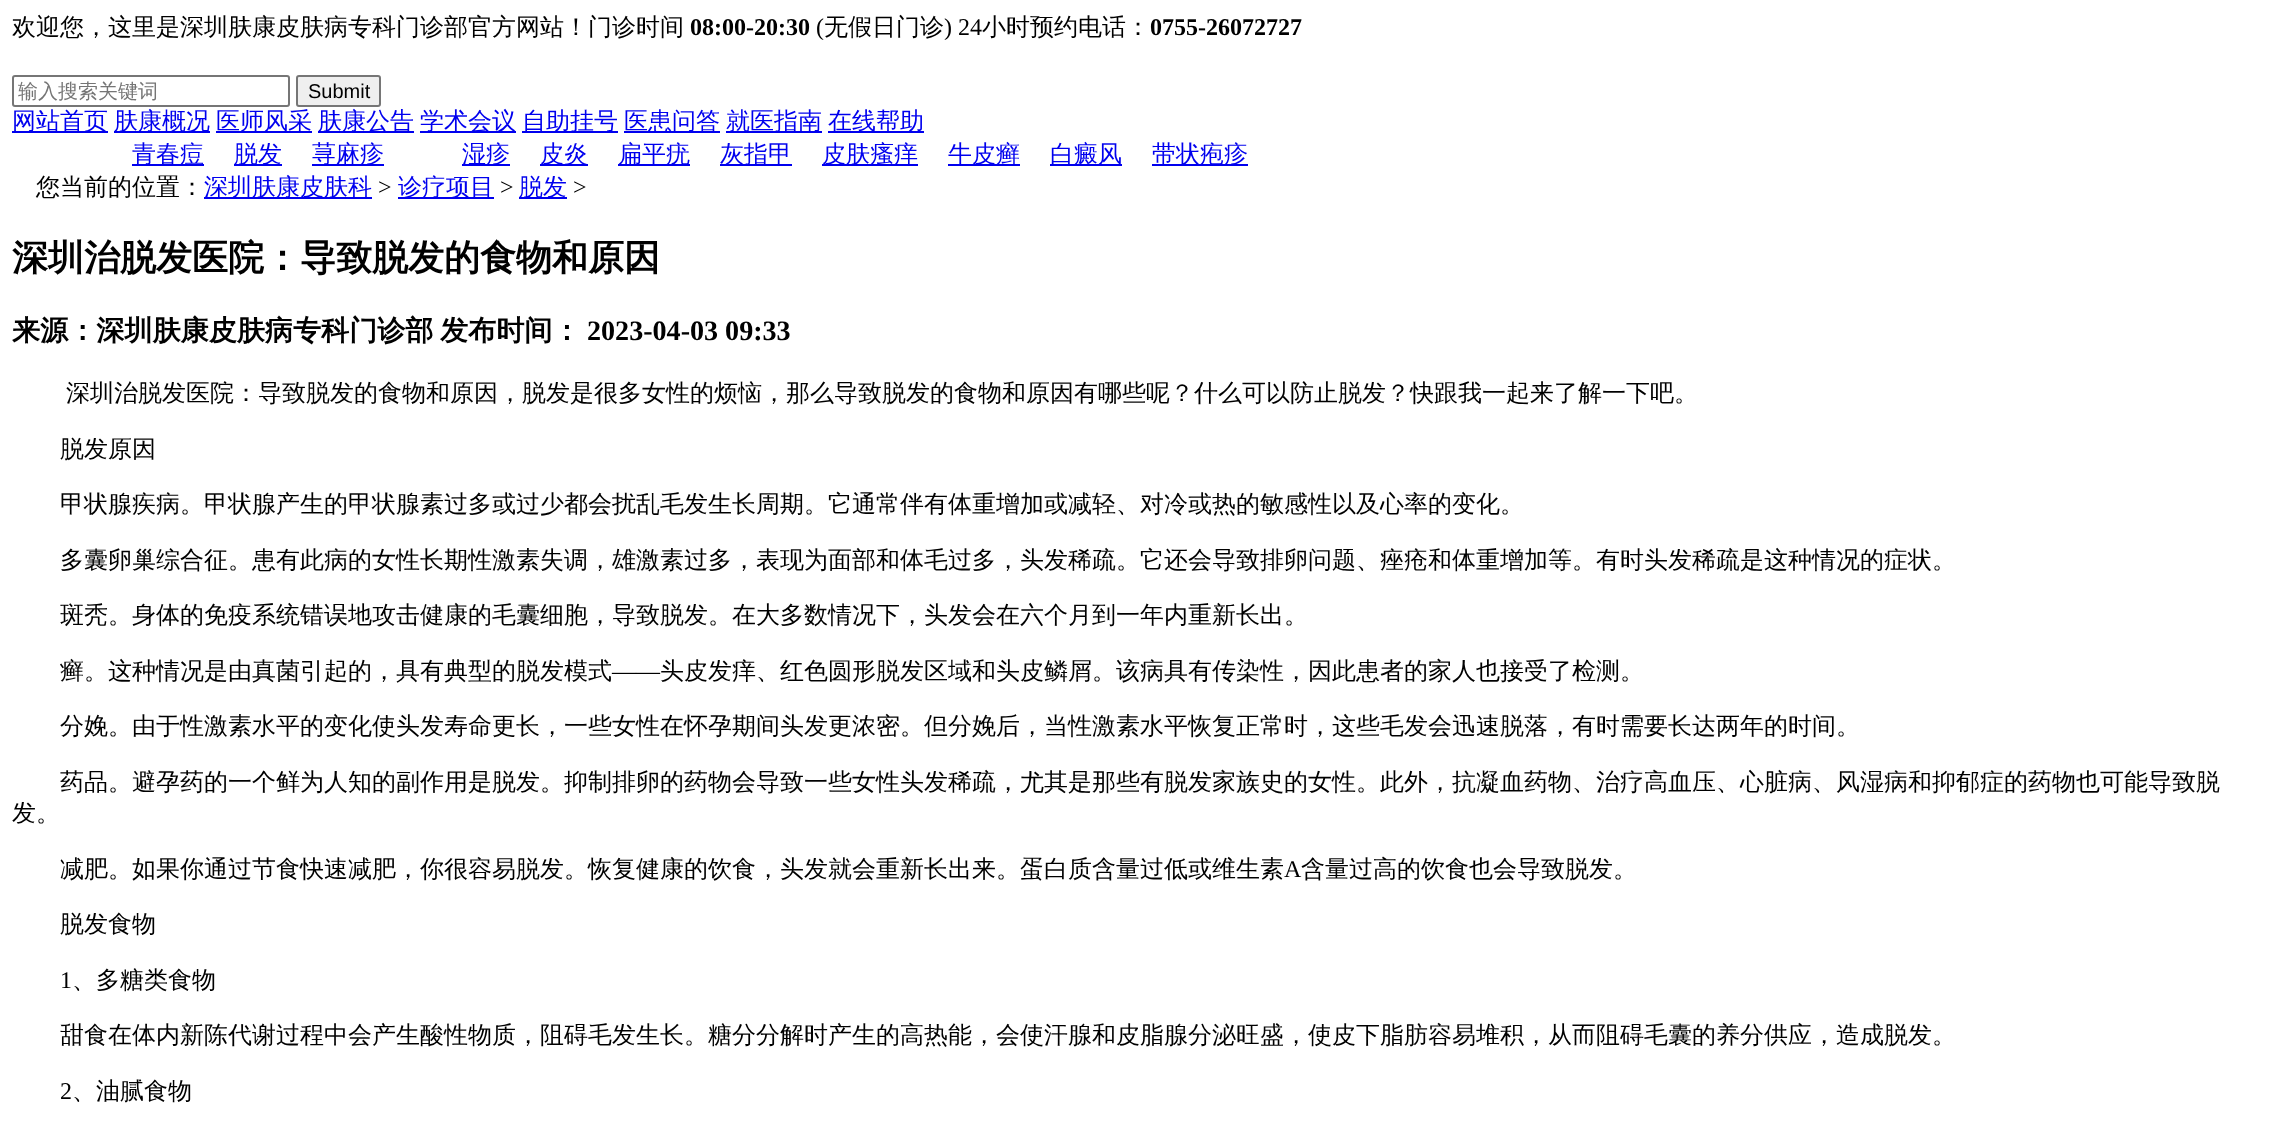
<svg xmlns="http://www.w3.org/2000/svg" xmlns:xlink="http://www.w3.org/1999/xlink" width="2277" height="1143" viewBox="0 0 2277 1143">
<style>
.cls-1{font:500 24px WenQuanYi Zen Hei;fill:#000000}
.cls-2{font:bold 24px Liberation Serif;fill:#000000}
.cls-3{font:24px Liberation Serif;fill:#000000}
.cls-4{font:500 20px WenQuanYi Zen Hei;fill:#757575}
.cls-5{font:20px Liberation Sans;fill:#000000}
.cls-6{font:500 24px WenQuanYi Zen Hei;fill:#0000ee}
.cls-7{font:bold 36px WenQuanYi Zen Hei;fill:#000000}
.cls-8{font:bold 28.1px WenQuanYi Zen Hei;fill:#000000}
.cls-9{font:bold 28.1px Liberation Serif;fill:#000000}
</style>
<rect width="100%" height="100%" fill="#ffffff"/>
<rect fill="none" stroke="#767676" stroke-width="2" x="13" y="76" width="276" height="30" rx="2"/>
<rect fill="#efefef" stroke="#767676" stroke-width="2" x="297" y="76" width="83" height="30" rx="2"/>
<rect fill="#0000ee" x="12" y="131" width="96" height="2"/>
<rect fill="#0000ee" x="114" y="131" width="96" height="2"/>
<rect fill="#0000ee" x="216" y="131" width="96" height="2"/>
<rect fill="#0000ee" x="318" y="131" width="96" height="2"/>
<rect fill="#0000ee" x="420" y="131" width="96" height="2"/>
<rect fill="#0000ee" x="522" y="131" width="96" height="2"/>
<rect fill="#0000ee" x="624" y="131" width="96" height="2"/>
<rect fill="#0000ee" x="726" y="131" width="96" height="2"/>
<rect fill="#0000ee" x="828" y="131" width="96" height="2"/>
<rect fill="#0000ee" x="132" y="164" width="72" height="2"/>
<rect fill="#0000ee" x="234" y="164" width="48" height="2"/>
<rect fill="#0000ee" x="312" y="164" width="72" height="2"/>
<rect fill="#0000ee" x="462" y="164" width="48" height="2"/>
<rect fill="#0000ee" x="540" y="164" width="48" height="2"/>
<rect fill="#0000ee" x="618" y="164" width="72" height="2"/>
<rect fill="#0000ee" x="720" y="164" width="72" height="2"/>
<rect fill="#0000ee" x="822" y="164" width="96" height="2"/>
<rect fill="#0000ee" x="948" y="164" width="72" height="2"/>
<rect fill="#0000ee" x="1050" y="164" width="72" height="2"/>
<rect fill="#0000ee" x="1152" y="164" width="96" height="2"/>
<rect fill="#0000ee" x="204" y="197" width="168" height="2"/>
<rect fill="#0000ee" x="398" y="197" width="96" height="2"/>
<rect fill="#0000ee" x="519" y="197" width="48" height="2"/>
<text class="cls-1" x="12" y="35">欢迎您，这里是深圳肤康皮肤病专科门诊部官方网站！门诊时间</text>
<text class="cls-2" x="690" y="35">08:00-20:30</text>
<text class="cls-3" x="816" y="35">(</text>
<text class="cls-1" x="824" y="35">无假日门诊</text>
<text class="cls-3" x="944" y="35">) 24</text>
<text class="cls-1" x="982" y="35">小时预约电话：</text>
<text class="cls-2" x="1150" y="35">0755-26072727</text>
<text class="cls-4" x="18" y="98">输入搜索关键词</text>
<text class="cls-5" x="308" y="98">Submit</text>
<text class="cls-6" x="12" y="129">网站首页</text>
<text class="cls-6" x="114" y="129">肤康概况</text>
<text class="cls-6" x="216" y="129">医师风采</text>
<text class="cls-6" x="318" y="129">肤康公告</text>
<text class="cls-6" x="420" y="129">学术会议</text>
<text class="cls-6" x="522" y="129">自助挂号</text>
<text class="cls-6" x="624" y="129">医患问答</text>
<text class="cls-6" x="726" y="129">就医指南</text>
<text class="cls-6" x="828" y="129">在线帮助</text>
<text class="cls-6" x="132" y="162">青春痘</text>
<text class="cls-6" x="234" y="162">脱发</text>
<text class="cls-6" x="312" y="162">荨麻疹</text>
<text class="cls-6" x="462" y="162">湿疹</text>
<text class="cls-6" x="540" y="162">皮炎</text>
<text class="cls-6" x="618" y="162">扁平疣</text>
<text class="cls-6" x="720" y="162">灰指甲</text>
<text class="cls-6" x="822" y="162">皮肤瘙痒</text>
<text class="cls-6" x="948" y="162">牛皮癣</text>
<text class="cls-6" x="1050" y="162">白癜风</text>
<text class="cls-6" x="1152" y="162">带状疱疹</text>
<text class="cls-1" x="36" y="195">您当前的位置：</text>
<text class="cls-6" x="204" y="195">深圳肤康皮肤科</text>
<text class="cls-3" x="378" y="195">&gt;</text>
<text class="cls-6" x="398" y="195">诊疗项目</text>
<text class="cls-3" x="500" y="195">&gt;</text>
<text class="cls-6" x="519" y="195">脱发</text>
<text class="cls-3" x="573" y="195">&gt;</text>
<text class="cls-7" x="12" y="270">深圳治脱发医院：导致脱发的食物和原因</text>
<text class="cls-8" x="12" y="340">来源：深圳肤康皮肤病专科门诊部</text>
<text class="cls-8" x="440" y="340">发布时间：</text>
<text class="cls-9" x="587" y="340">2023-04-03 09:33</text>
<text class="cls-1" x="66" y="401">深圳治脱发医院：导致脱发的食物和原因，脱发是很多女性的烦恼，那么导致脱发的食物和原因有哪些呢？什么可以防止脱发？快跟我一起来了解一下吧。</text>
<text class="cls-1" x="60" y="457">脱发原因</text>
<text class="cls-1" x="60" y="512">甲状腺疾病。甲状腺产生的甲状腺素过多或过少都会扰乱毛发生长周期。它通常伴有体重增加或减轻、对冷或热的敏感性以及心率的变化。</text>
<text class="cls-1" x="60" y="568">多囊卵巢综合征。患有此病的女性长期性激素失调，雄激素过多，表现为面部和体毛过多，头发稀疏。它还会导致排卵问题、痤疮和体重增加等。有时头发稀疏是这种情况的症状。</text>
<text class="cls-1" x="60" y="623">斑秃。身体的免疫系统错误地攻击健康的毛囊细胞，导致脱发。在大多数情况下，头发会在六个月到一年内重新长出。</text>
<text class="cls-1" x="60" y="679">癣。这种情况是由真菌引起的，具有典型的脱发模式</text>
<text class="cls-3" x="612" y="679">——</text>
<text class="cls-1" x="660" y="679">头皮发痒、红色圆形脱发区域和头皮鳞屑。该病具有传染性，因此患者的家人也接受了检测。</text>
<text class="cls-1" x="60" y="734">分娩。由于性激素水平的变化使头发寿命更长，一些女性在怀孕期间头发更浓密。但分娩后，当性激素水平恢复正常时，这些毛发会迅速脱落，有时需要长达两年的时间。</text>
<text class="cls-1" x="60" y="790">药品。避孕药的一个鲜为人知的副作用是脱发。抑制排卵的药物会导致一些女性头发稀疏，尤其是那些有脱发家族史的女性。此外，抗凝血药物、治疗高血压、心脏病、风湿病和抑郁症的药物也可能导致脱</text>
<text class="cls-1" x="12" y="821">发。</text>
<text class="cls-1" x="60" y="877">减肥。如果你通过节食快速减肥，你很容易脱发。恢复健康的饮食，头发就会重新长出来。蛋白质含量过低或维生素</text>
<text class="cls-3" x="1284" y="877">A</text>
<text class="cls-1" x="1301" y="877">含量过高的饮食也会导致脱发。</text>
<text class="cls-1" x="60" y="932">脱发食物</text>
<text class="cls-3" x="60" y="988">1</text>
<text class="cls-1" x="72" y="988">、多糖类食物</text>
<text class="cls-1" x="60" y="1043">甜食在体内新陈代谢过程中会产生酸性物质，阻碍毛发生长。糖分分解时产生的高热能，会使汗腺和皮脂腺分泌旺盛，使皮下脂肪容易堆积，从而阻碍毛囊的养分供应，造成脱发。</text>
<text class="cls-3" x="60" y="1099">2</text>
<text class="cls-1" x="72" y="1099">、油腻食物</text>
</svg>
